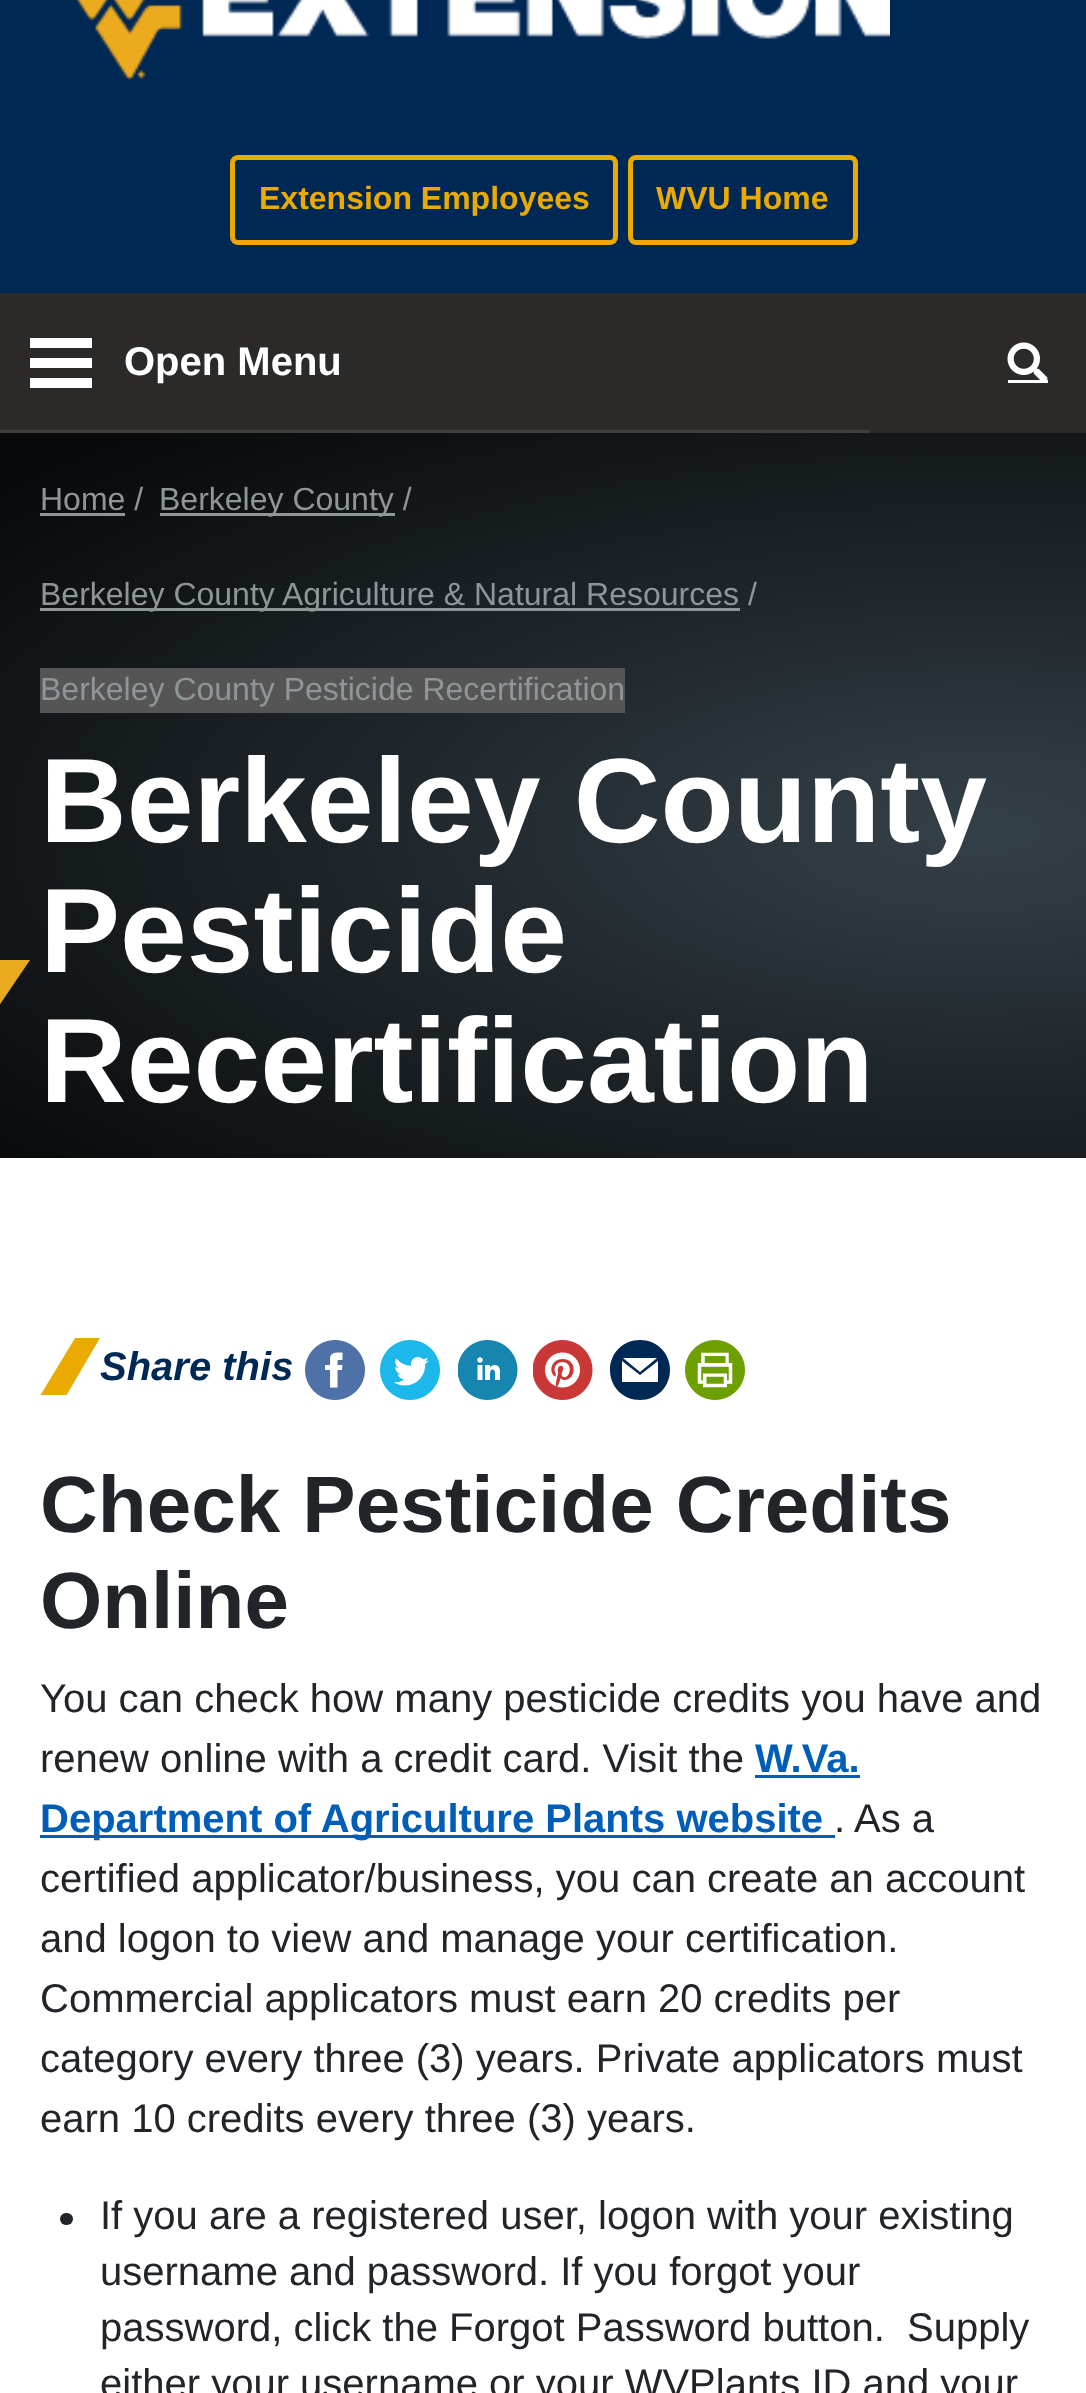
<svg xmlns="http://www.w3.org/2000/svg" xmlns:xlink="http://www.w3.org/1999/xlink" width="1086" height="2393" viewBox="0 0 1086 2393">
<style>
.cls-1{font:bold 32px Liberation Sans;fill:#eaaa00}
.cls-2{font:bold 40px Liberation Sans;fill:#ffffff}
.cls-3{font:32px Liberation Sans;fill:#8f9699}
.cls-4{font:bold 120px Liberation Sans;fill:#ffffff}
.cls-5{font:italic bold 40px Liberation Sans;fill:#002855}
.cls-6{font:bold 80px Liberation Sans;fill:#212529}
.cls-7{font:40px Liberation Sans;fill:#212529}
.cls-8{font:bold 40px Liberation Sans;fill:#005eb8}
</style>
<defs>
<radialGradient id="g1" gradientUnits="userSpaceOnUse" cx="0" cy="0" r="1" gradientTransform="matrix(1282 0 0 522 979 831)"><stop offset="0" stop-color="#344048"/><stop offset="1" stop-color="#080a0b"/></radialGradient>
<clipPath id="clip1"><rect x="40" y="1338" width="60" height="57"/></clipPath>
</defs>
<rect width="100%" height="100%" fill="#ffffff"/>
<rect fill="#002855" x="0" y="0" width="1086" height="293"/>
<image xlink:href="image0.png" x="76" y="0" width="814" height="80"/>
<rect fill="none" stroke="#eaaa00" stroke-width="5" x="232.5" y="157.5" width="383" height="85" rx="5.5"/>
<rect fill="none" stroke="#eaaa00" stroke-width="5" x="630.5" y="157.5" width="225" height="85" rx="5.5"/>
<rect fill="#2c2a29" x="0" y="293" width="1086" height="140"/>
<rect fill="#413f3e" x="0" y="430" width="870" height="3"/>
<path fill="#ffffff" d="M30 338H92V348H30ZM30 358H92V368H30ZM30 378H92V388H30Z"/>
<image xlink:href="image1.png" x="1007" y="342" width="41" height="38"/>
<rect fill="#ffffff" x="1008" y="380" width="40" height="3"/>
<rect fill="url(#g1)" x="0" y="433" width="1086" height="725"/>
<rect fill="#8f9699" x="40" y="513" width="85" height="3"/>
<rect fill="#8f9699" x="160" y="513" width="235" height="3"/>
<rect fill="#8f9699" x="40" y="608" width="700" height="3"/>
<rect fill="#555555" x="40" y="668" width="585" height="45"/>
<path fill="#eaab21" d="M-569 1480L-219 960H30L-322 1480Z"/>
<g clip-path="url(#clip1)">
<path fill="#eaaa00" d="M40 1396L75 1338H100L66 1396Z"/>
</g>
<image xlink:href="image2.png" x="305" y="1340" width="60" height="60"/>
<image xlink:href="image3.png" x="380" y="1340" width="60" height="60"/>
<image xlink:href="image4.png" x="458" y="1340" width="60" height="60"/>
<image xlink:href="image5.png" x="533" y="1340" width="60" height="60"/>
<path fill="#002855" d="M640 1340C623 1340 610 1353 610 1370C610 1387 623 1400 640 1400C657 1400 670 1387 670 1370C670 1353 657 1340 640 1340ZM657 1358L640 1372L623 1358ZM658 1382H622V1361L640 1375L658 1361Z"/>
<image xlink:href="image6.png" x="685" y="1340" width="60" height="60"/>
<rect fill="#005eb8" x="755" y="1775" width="105" height="3"/>
<rect fill="#005eb8" x="40" y="1835" width="795" height="3"/>
<rect fill="#212529" x="60" y="2213" width="13" height="12" rx="6"/>
<text class="cls-1" x="259" y="209">Extension Employees</text>
<text class="cls-1" x="656" y="209">WVU Home</text>
<text class="cls-2" x="124" y="375">Open Menu</text>
<text class="cls-3" x="40" y="510">Home /</text>
<text class="cls-3" x="159" y="510">Berkeley County /</text>
<text class="cls-3" x="40" y="605">Berkeley County Agriculture &amp; Natural Resources /</text>
<text class="cls-3" x="40" y="700">Berkeley County Pesticide Recertification</text>
<text class="cls-4"><tspan x="40" y="842">Berkeley County</tspan><tspan x="40" y="972">Pesticide</tspan><tspan x="40" y="1102">Recertification</tspan></text>
<text class="cls-5" x="100" y="1380">Share this</text>
<text class="cls-6"><tspan x="40" y="1532">Check Pesticide Credits</tspan><tspan x="40" y="1628">Online</tspan></text>
<text class="cls-7"><tspan x="40" y="1712">You can check how many pesticide credits you have and</tspan><tspan x="40" y="1772">renew online with a credit card. Visit the</tspan></text>
<text class="cls-8" x="755" y="1772">W.Va.</text>
<text class="cls-8" x="40" y="1832">Department of Agriculture Plants website</text>
<text class="cls-7" x="834" y="1832">. As a</text>
<text class="cls-7"><tspan x="40" y="1892">certified applicator/business, you can create an account</tspan><tspan x="40" y="1952">and logon to view and manage your certification.</tspan><tspan x="40" y="2012">Commercial applicators must earn 20 credits per</tspan><tspan x="40" y="2072">category every three (3) years. Private applicators must</tspan><tspan x="40" y="2132">earn 10 credits every three (3) years.</tspan></text>
<text class="cls-7" xml:space="preserve"><tspan x="100" y="2229">If you are a registered user, logon with your existing</tspan><tspan x="100" y="2285">username and password. If you forgot your</tspan><tspan x="100" y="2341">password, click the Forgot Password button.  Supply</tspan><tspan x="100" y="2397">either your username or your WVPlants ID and your</tspan></text>
</svg>
